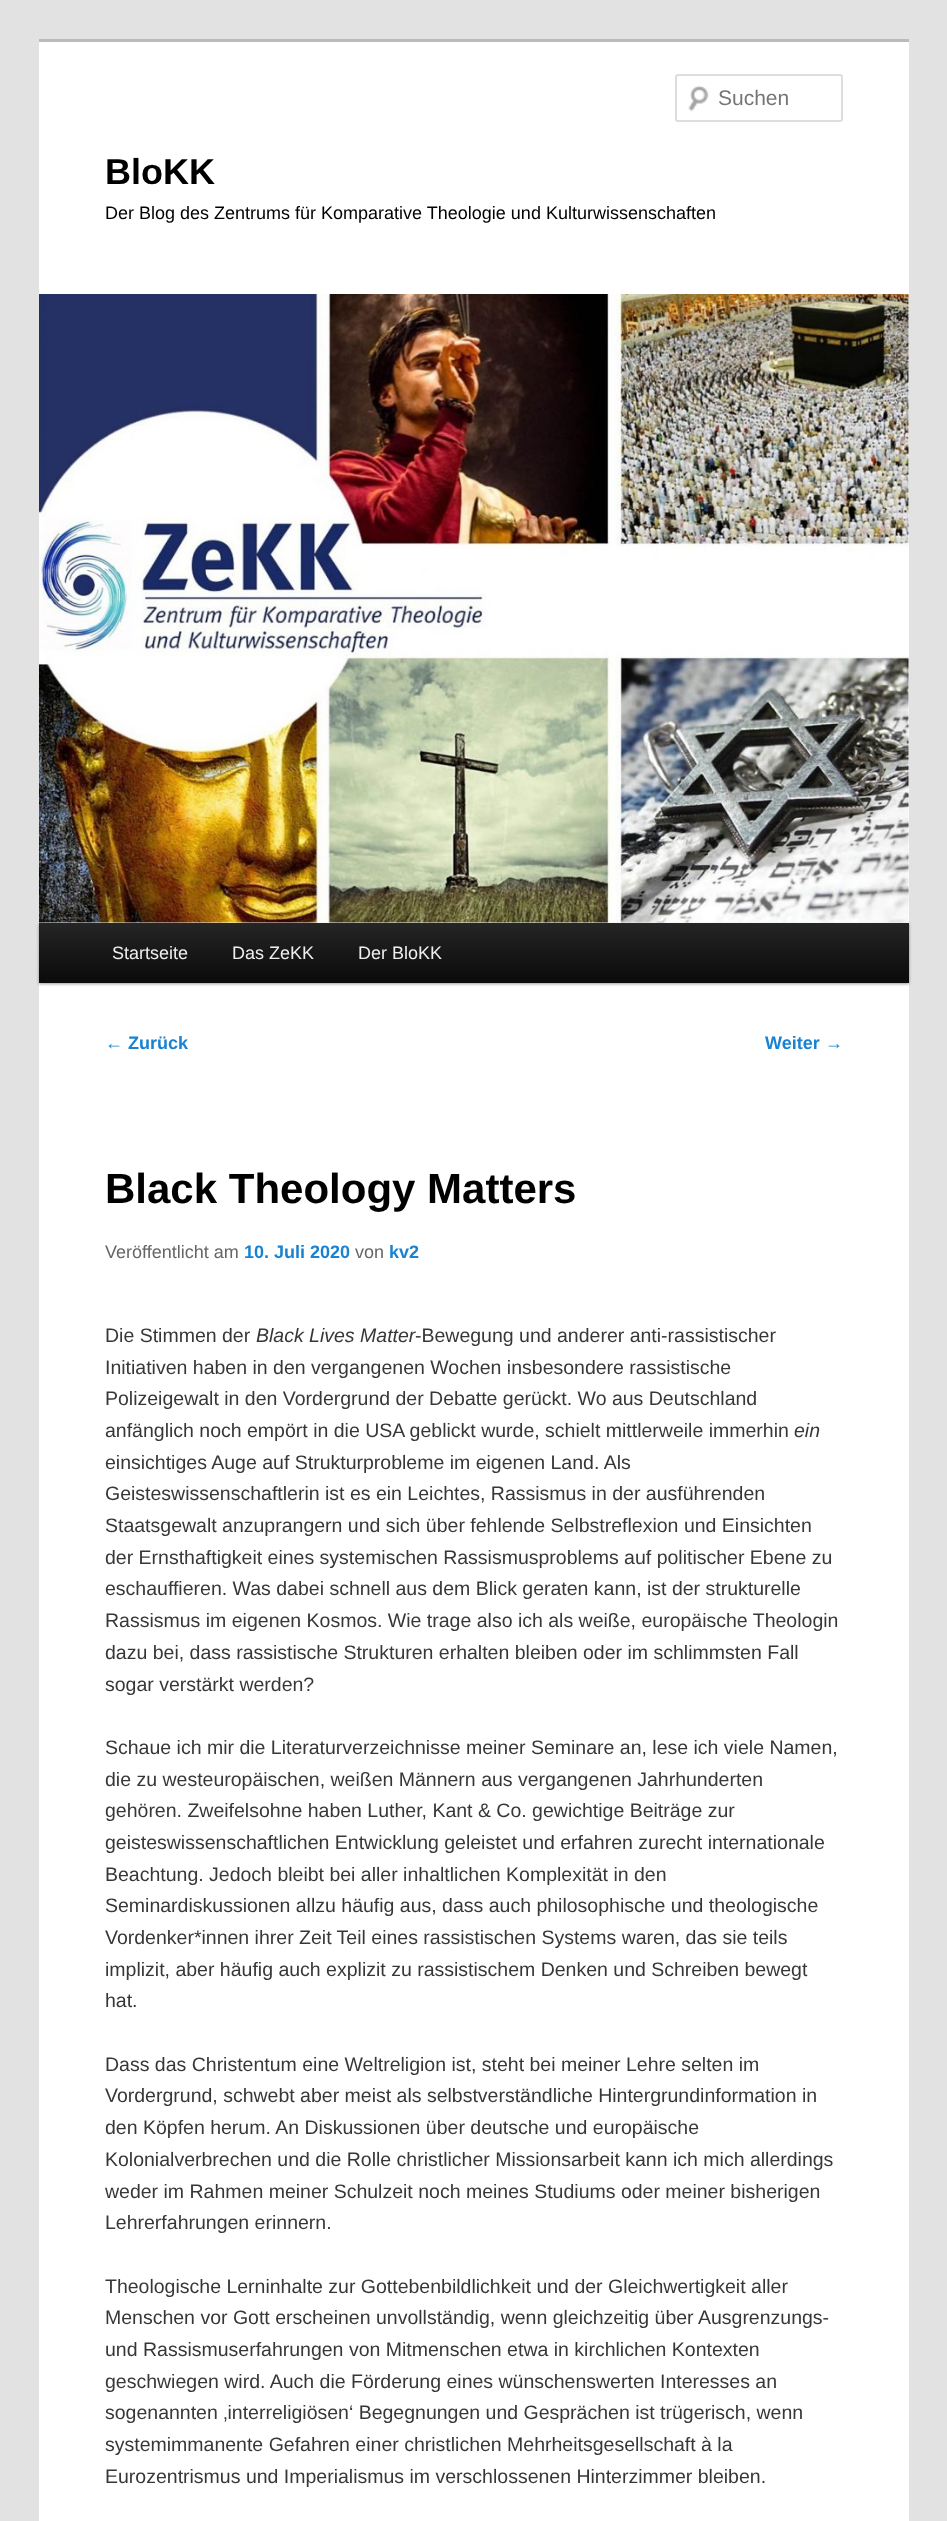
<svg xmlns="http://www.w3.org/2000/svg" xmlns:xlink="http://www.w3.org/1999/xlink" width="947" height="2521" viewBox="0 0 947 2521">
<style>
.cls-1{font:21px Liberation Sans;fill:#757575}
.cls-2{font:bold 36px Liberation Sans;fill:#000000}
.cls-3{font:18px Liberation Sans;fill:#000000}
.cls-4{font:18px Liberation Sans;fill:#eeeeee}
.cls-5{font:18px Liberation Sans;fill:#1982d1}
.cls-6{font:bold 18px Liberation Sans;fill:#1982d1}
.cls-7{font:bold 42px Liberation Sans;fill:#000000}
.cls-8{font:18px Liberation Sans;fill:#666666}
.cls-9{font:19.5px Liberation Sans;fill:#373737}
.cls-10{font:italic 19.5px Liberation Sans;fill:#373737}
</style>
<defs>
<linearGradient id="g1" gradientUnits="userSpaceOnUse" x1="474" y1="923" x2="474" y2="983"><stop offset="0" stop-color="#252525"/><stop offset="1" stop-color="#0a0a0a"/></linearGradient>
</defs>
<rect width="100%" height="100%" fill="#e2e2e2"/>
<rect fill="#ffffff" x="39" y="42" width="870" height="2479"/>
<rect fill="#bbbbbb" x="39" y="39" width="870" height="3"/>
<image xlink:href="image0.png" x="688" y="85" width="21" height="27"/>
<rect fill="none" stroke="#dddddd" stroke-width="2" x="676" y="75" width="166" height="46" rx="2"/>
<rect fill="#000000" fill-opacity="0.4" filter="blur(1.5px)" x="39" y="924" width="870" height="60"/>
<image xlink:href="image1.png" x="39" y="294" width="870" height="629"/>
<rect fill="url(#g1)" x="39" y="923" width="870" height="60"/>
<text class="cls-1" x="718" y="105">Suchen</text>
<text class="cls-2" x="105" y="184">BloKK</text>
<text class="cls-3" x="105" y="219">Der Blog des Zentrums für Komparative Theologie und Kulturwissenschaften</text>
<text class="cls-4" x="112" y="959">Startseite</text>
<text class="cls-4" x="232" y="959">Das ZeKK</text>
<text class="cls-4" x="358" y="959">Der BloKK</text>
<text class="cls-5" x="105" y="1049">←</text>
<text class="cls-6" x="128" y="1049">Zurück</text>
<text class="cls-6" x="765" y="1049">Weiter</text>
<text class="cls-5" x="825" y="1049">→</text>
<text class="cls-7" x="105" y="1203">Black Theology Matters</text>
<text class="cls-8" x="105" y="1258">Veröffentlicht am</text>
<text class="cls-6" x="244" y="1258">10. Juli 2020</text>
<text class="cls-8" x="355" y="1258">von</text>
<text class="cls-6" x="389" y="1258">kv2</text>
<text class="cls-9" x="105" y="1342">Die Stimmen der</text>
<text class="cls-10" x="256" y="1342">Black Lives Matter</text>
<text class="cls-9" x="415" y="1342">-Bewegung und anderer anti-rassistischer</text>
<text class="cls-9"><tspan x="105" y="1374">Initiativen haben in den vergangenen Wochen insbesondere rassistische</tspan><tspan x="105" y="1405">Polizeigewalt in den Vordergrund der Debatte gerückt. Wo aus Deutschland</tspan><tspan x="105" y="1437">anfänglich noch empört in die USA geblickt wurde, schielt mittlerweile immerhin</tspan></text>
<text class="cls-10" x="794" y="1437">ein</text>
<text class="cls-9"><tspan x="105" y="1469">einsichtiges Auge auf Strukturprobleme im eigenen Land. Als</tspan><tspan x="105" y="1500">Geisteswissenschaftlerin ist es ein Leichtes, Rassismus in der ausführenden</tspan><tspan x="105" y="1532">Staatsgewalt anzuprangern und sich über fehlende Selbstreflexion und Einsichten</tspan><tspan x="105" y="1564">der Ernsthaftigkeit eines systemischen Rassismusproblems auf politischer Ebene zu</tspan><tspan x="105" y="1595">eschauffieren. Was dabei schnell aus dem Blick geraten kann, ist der strukturelle</tspan><tspan x="105" y="1627">Rassismus im eigenen Kosmos. Wie trage also ich als weiße, europäische Theologin</tspan><tspan x="105" y="1659">dazu bei, dass rassistische Strukturen erhalten bleiben oder im schlimmsten Fall</tspan><tspan x="105" y="1691">sogar verstärkt werden?</tspan></text>
<text class="cls-9"><tspan x="105" y="1754">Schaue ich mir die Literaturverzeichnisse meiner Seminare an, lese ich viele Namen,</tspan><tspan x="105" y="1786">die zu westeuropäischen, weißen Männern aus vergangenen Jahrhunderten</tspan><tspan x="105" y="1817">gehören. Zweifelsohne haben Luther, Kant &amp; Co. gewichtige Beiträge zur</tspan><tspan x="105" y="1849">geisteswissenschaftlichen Entwicklung geleistet und erfahren zurecht internationale</tspan><tspan x="105" y="1881">Beachtung. Jedoch bleibt bei aller inhaltlichen Komplexität in den</tspan><tspan x="105" y="1912">Seminardiskussionen allzu häufig aus, dass auch philosophische und theologische</tspan><tspan x="105" y="1944">Vordenker*innen ihrer Zeit Teil eines rassistischen Systems waren, das sie teils</tspan><tspan x="105" y="1976">implizit, aber häufig auch explizit zu rassistischem Denken und Schreiben bewegt</tspan><tspan x="105" y="2007">hat.</tspan></text>
<text class="cls-9"><tspan x="105" y="2071">Dass das Christentum eine Weltreligion ist, steht bei meiner Lehre selten im</tspan><tspan x="105" y="2102">Vordergrund, schwebt aber meist als selbstverständliche Hintergrundinformation in</tspan><tspan x="105" y="2134">den Köpfen herum. An Diskussionen über deutsche und europäische</tspan><tspan x="105" y="2166">Kolonialverbrechen und die Rolle christlicher Missionsarbeit kann ich mich allerdings</tspan><tspan x="105" y="2198">weder im Rahmen meiner Schulzeit noch meines Studiums oder meiner bisherigen</tspan><tspan x="105" y="2229">Lehrerfahrungen erinnern.</tspan></text>
<text class="cls-9"><tspan x="105" y="2293">Theologische Lerninhalte zur Gottebenbildlichkeit und der Gleichwertigkeit aller</tspan><tspan x="105" y="2324">Menschen vor Gott erscheinen unvollständig, wenn gleichzeitig über Ausgrenzungs-</tspan><tspan x="105" y="2356">und Rassismuserfahrungen von Mitmenschen etwa in kirchlichen Kontexten</tspan><tspan x="105" y="2388">geschwiegen wird. Auch die Förderung eines wünschenswerten Interesses an</tspan><tspan x="105" y="2419">sogenannten ‚interreligiösen‘ Begegnungen und Gesprächen ist trügerisch, wenn</tspan><tspan x="105" y="2451">systemimmanente Gefahren einer christlichen Mehrheitsgesellschaft à la</tspan><tspan x="105" y="2483">Eurozentrismus und Imperialismus im verschlossenen Hinterzimmer bleiben.</tspan></text>
</svg>
